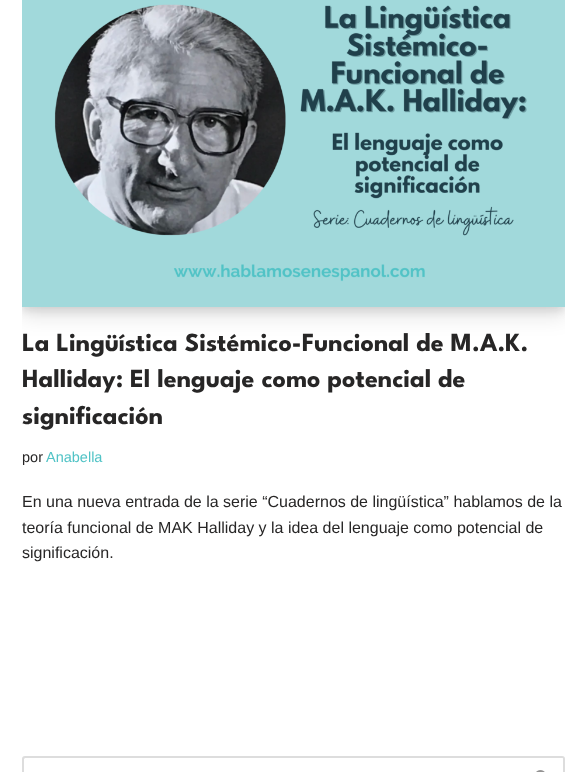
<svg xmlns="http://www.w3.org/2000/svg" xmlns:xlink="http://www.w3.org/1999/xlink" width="586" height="772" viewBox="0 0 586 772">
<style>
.cls-1{font:bold 26px League Spartan;fill:#272626}
.cls-2{font:14.5px Liberation Sans;fill:#272626}
.cls-3{font:14.5px Liberation Sans;fill:#51c3c6}
.cls-4{font:16px Liberation Sans;fill:#272626}
</style>
<defs>
<clipPath id="clip1"><rect x="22" y="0" width="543" height="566"/></clipPath>
</defs>
<rect width="100%" height="100%" fill="#ffffff"/>
<g clip-path="url(#clip1)">
<rect fill="#000000" fill-opacity="0.1" filter="blur(4px)" x="22" y="-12" width="543" height="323"/>
<rect fill="#000000" fill-opacity="0.1" filter="blur(10px)" x="22" y="-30" width="543" height="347"/>
</g>
<image xlink:href="image0.png" x="22" y="0" width="543" height="307"/>
<path fill="#dddddd" fill-rule="evenodd" d="M25 756H520V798H25C23 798 22 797 22 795V759C22 757 23 756 25 756ZM25 758H520V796H25C23 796 24 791 24 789V759Z"/>
<path fill="#dddddd" fill-rule="evenodd" d="M520 756H562C564 756 565 757 565 759V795C565 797 564 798 562 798H520ZM520 758H562C563 758 563 758 563 759V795C563 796 563 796 562 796H520Z"/>
<image xlink:href="image1.png" x="536" y="770" width="9" height="2"/>
<text class="cls-1"><tspan x="22" y="351">La Lingüística Sistémico-Funcional de M.A.K.</tspan><tspan x="22" y="387">Halliday: El lenguaje como potencial de</tspan><tspan x="22" y="424">significación</tspan></text>
<text class="cls-2" x="22" y="462">por</text>
<text class="cls-3" x="46" y="462">Anabella</text>
<text class="cls-4"><tspan x="22" y="507">En una nueva entrada de la serie “Cuadernos de lingüística” hablamos de la</tspan><tspan x="22" y="533">teoría funcional de MAK Halliday y la idea del lenguaje como potencial de</tspan><tspan x="22" y="558">significación.</tspan></text>
</svg>
